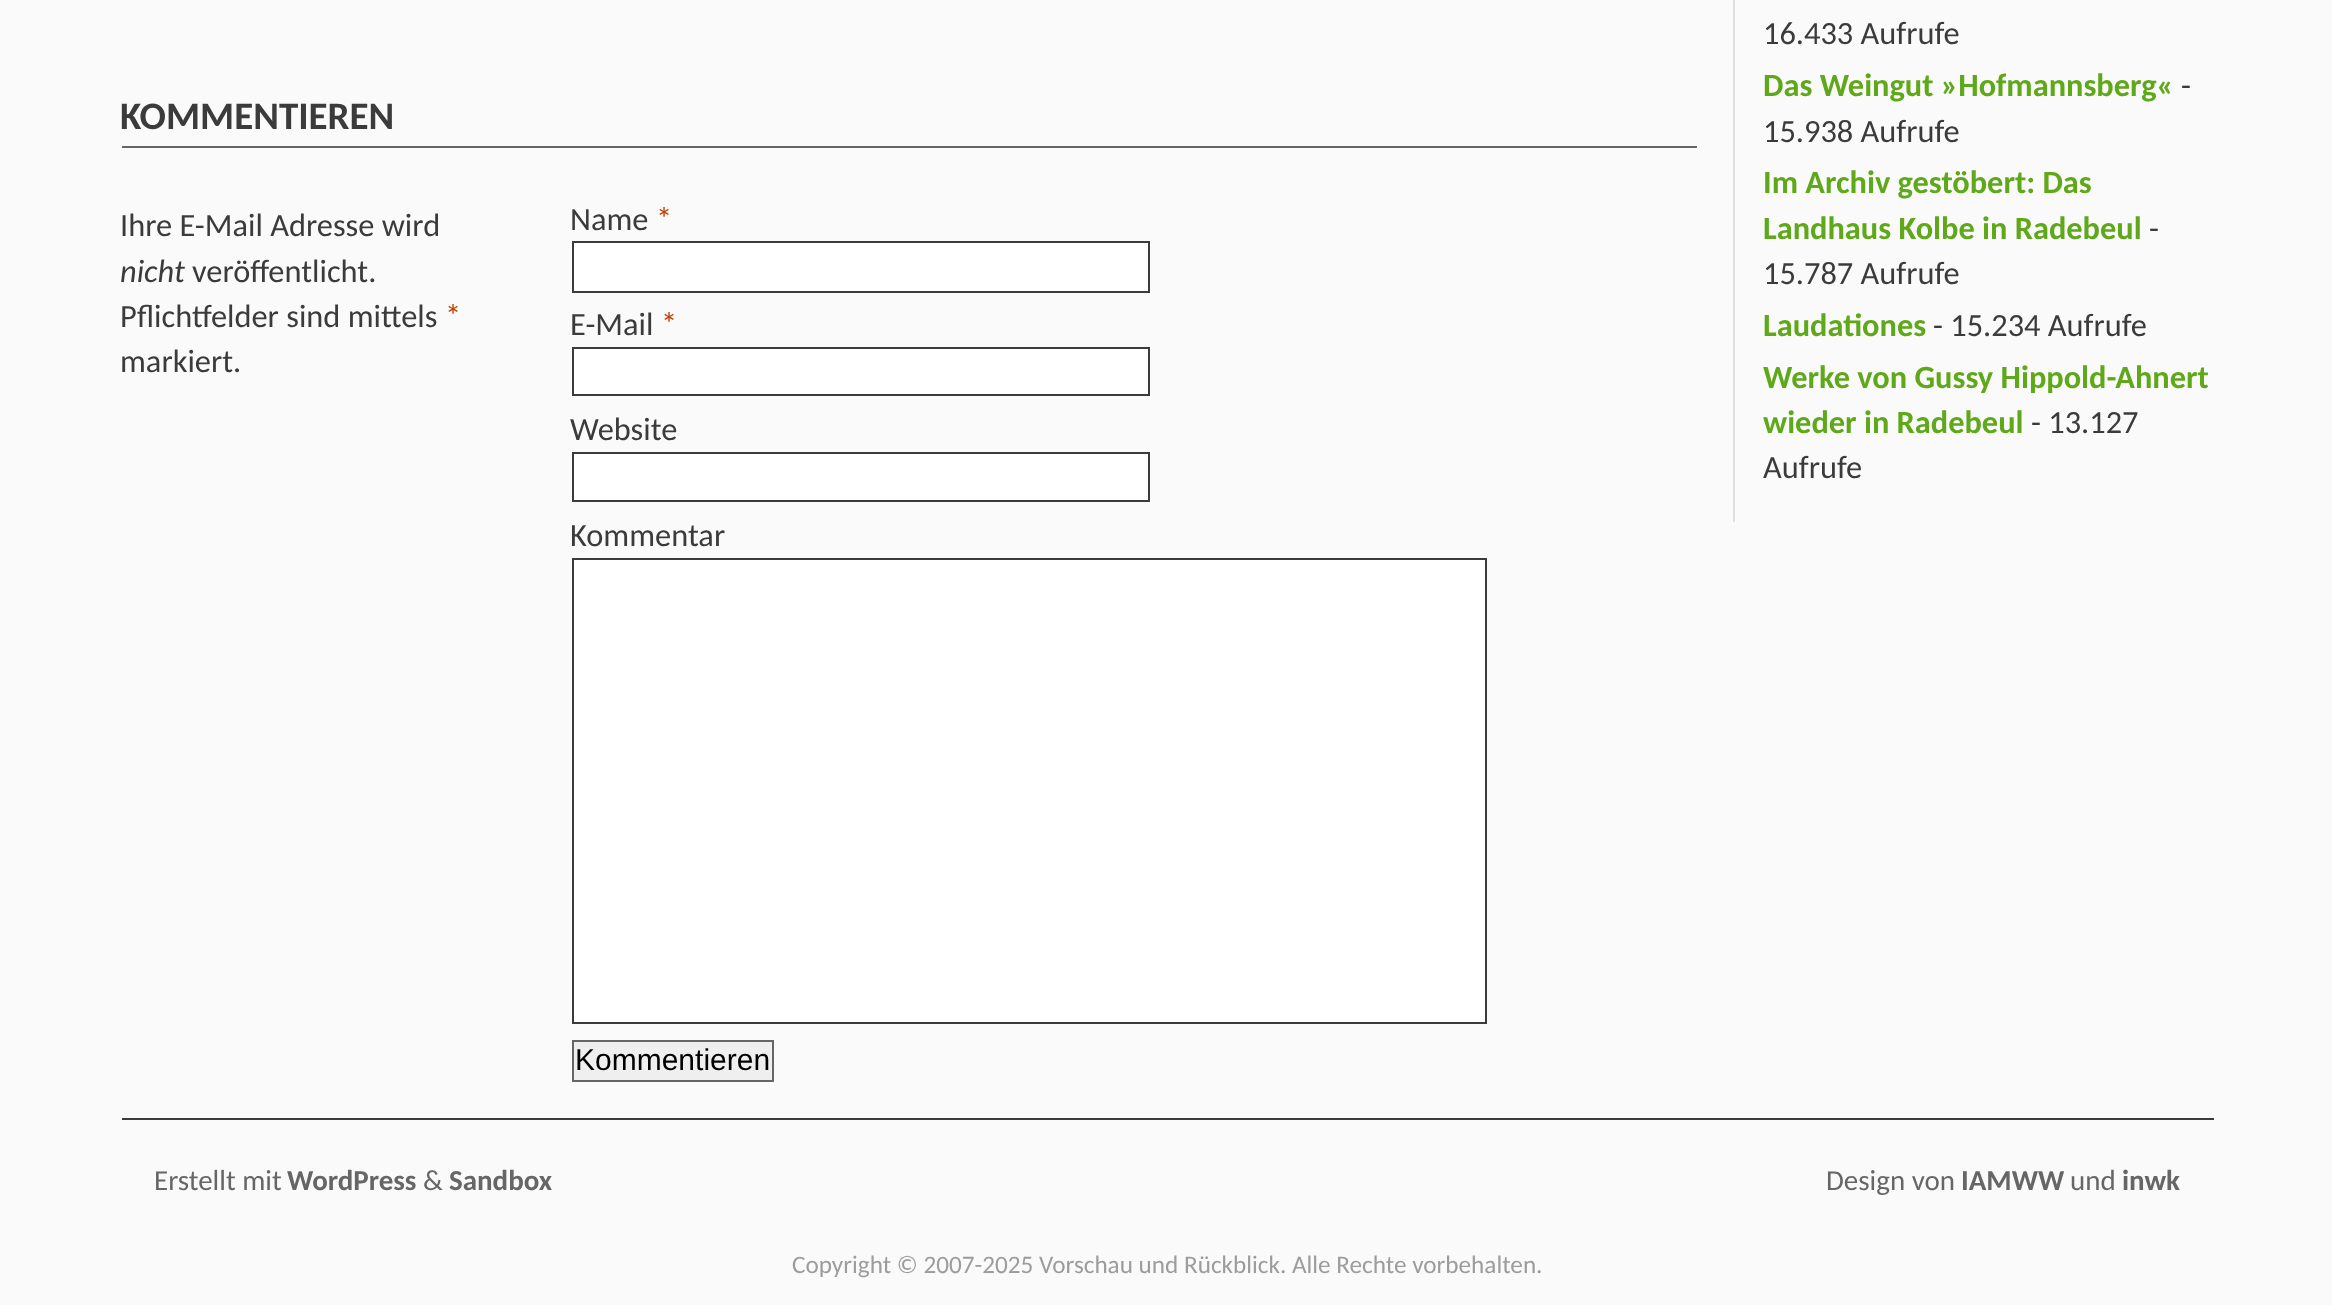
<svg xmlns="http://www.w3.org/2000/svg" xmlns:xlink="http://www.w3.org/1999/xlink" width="2332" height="1305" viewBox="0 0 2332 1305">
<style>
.cls-1{font:bold 39px Carlito;fill:#3b3b3b}
.cls-2{font:32.4px Carlito;fill:#3b3b3b}
.cls-3{font:italic 32.4px Carlito;fill:#3b3b3b}
.cls-4{font:32.4px Carlito;fill:#c44100}
.cls-5{font:30px Liberation Sans;fill:#000000}
.cls-6{font:bold 32.4px Carlito;fill:#5fa81a}
.cls-7{font:29px Carlito;fill:#666666}
.cls-8{font:bold 29px Carlito;fill:#666666}
.cls-9{font:25.2px Carlito;fill:#9c9c9c}
</style>
<rect width="100%" height="100%" fill="#fafafa"/>
<rect fill="#666666" x="122" y="146" width="1575" height="2"/>
<rect fill="#ffffff" stroke="#3b3b3b" stroke-width="2" x="573" y="242" width="576" height="50"/>
<rect fill="#ffffff" stroke="#3b3b3b" stroke-width="2" x="573" y="348" width="576" height="47"/>
<rect fill="#ffffff" stroke="#3b3b3b" stroke-width="2" x="573" y="453" width="576" height="48"/>
<rect fill="#ffffff" stroke="#3b3b3b" stroke-width="2" x="573" y="559" width="913" height="464"/>
<rect fill="#efefef" stroke="#666666" stroke-width="2" x="573" y="1041" width="200" height="40"/>
<rect fill="#dfdfdf" x="1733" y="0" width="2" height="522"/>
<rect fill="#3c3c3c" x="122" y="1118" width="2092" height="2"/>
<text class="cls-1" x="120" y="129">KOMMENTIEREN</text>
<text class="cls-2" x="120" y="236">Ihre E-Mail Adresse wird</text>
<text class="cls-3" x="120" y="282">nicht</text>
<text class="cls-2" x="192" y="282">veröffentlicht.</text>
<text class="cls-2" x="120" y="327">Pflichtfelder sind mittels</text>
<text class="cls-4" x="445" y="327">*</text>
<text class="cls-2" x="120" y="372">markiert.</text>
<text class="cls-2" x="570" y="230">Name</text>
<text class="cls-4" x="656" y="230">*</text>
<text class="cls-2" x="570" y="335">E-Mail</text>
<text class="cls-4" x="661" y="335">*</text>
<text class="cls-2" x="570" y="440">Website</text>
<text class="cls-2" x="570" y="546">Kommentar</text>
<text class="cls-5" x="575" y="1070">Kommentieren</text>
<text class="cls-2" x="1763" y="44">16.433 Aufrufe</text>
<text class="cls-6" x="1763" y="96">Das Weingut »Hofmannsberg«</text>
<text class="cls-2" x="2181" y="96">-</text>
<text class="cls-2" x="1763" y="142">15.938 Aufrufe</text>
<text class="cls-6"><tspan x="1763" y="193">Im Archiv gestöbert: Das</tspan><tspan x="1763" y="239">Landhaus Kolbe in Radebeul</tspan></text>
<text class="cls-2" x="2149" y="239">-</text>
<text class="cls-2" x="1763" y="284">15.787 Aufrufe</text>
<text class="cls-6" x="1763" y="336">Laudationes</text>
<text class="cls-2" x="1933" y="336">- 15.234 Aufrufe</text>
<text class="cls-6"><tspan x="1763" y="388">Werke von Gussy Hippold-Ahnert</tspan><tspan x="1763" y="433">wieder in Radebeul</tspan></text>
<text class="cls-2" x="2031" y="433">- 13.127</text>
<text class="cls-2" x="1763" y="478">Aufrufe</text>
<text class="cls-7" x="154" y="1190">Erstellt mit</text>
<text class="cls-8" x="287" y="1190">WordPress</text>
<text class="cls-7" x="423" y="1190">&amp;</text>
<text class="cls-8" x="449" y="1190">Sandbox</text>
<text class="cls-7" x="1826" y="1190">Design von</text>
<text class="cls-8" x="1961" y="1190">IAMWW</text>
<text class="cls-7" x="2070" y="1190">und</text>
<text class="cls-8" x="2122" y="1190">inwk</text>
<text class="cls-9" x="792" y="1273">Copyright © 2007-2025 Vorschau und Rückblick. Alle Rechte vorbehalten.</text>
</svg>
